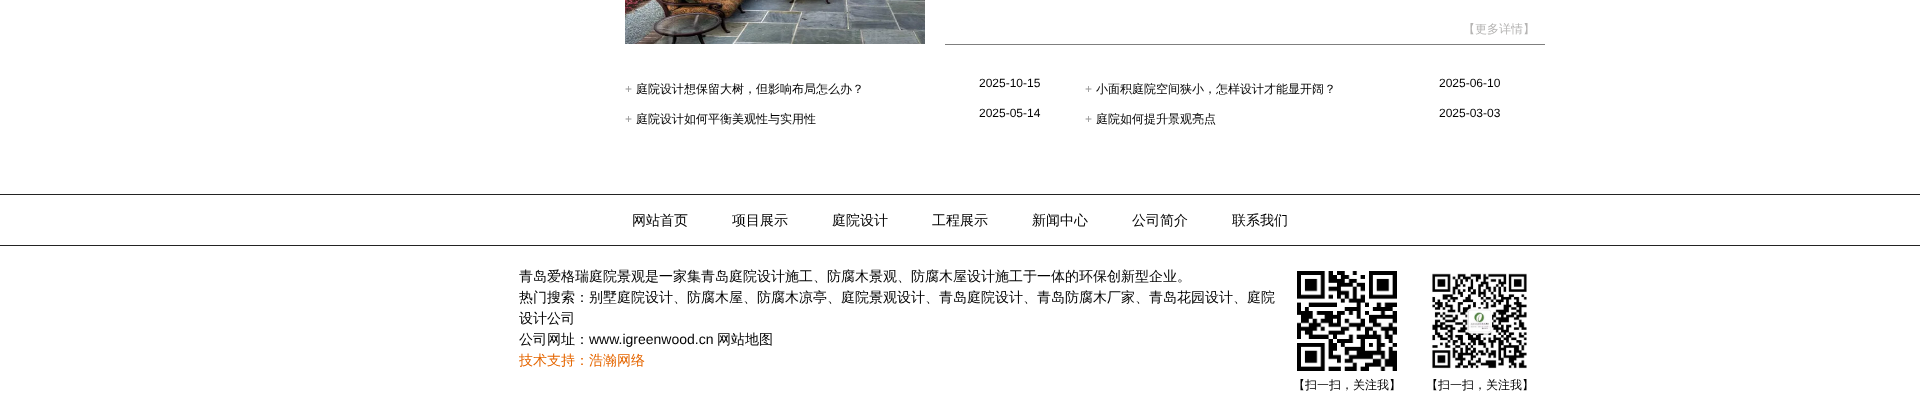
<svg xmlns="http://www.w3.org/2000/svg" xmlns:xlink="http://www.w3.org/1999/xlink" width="1920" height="403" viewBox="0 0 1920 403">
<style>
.cls-1{font:500 12px WenQuanYi Zen Hei;fill:#b5b4b3}
.cls-2{font:12px Liberation Sans;fill:#9a9a9a}
.cls-3{font:500 12px WenQuanYi Zen Hei;fill:#000000}
.cls-4{font:12px Liberation Sans;fill:#000000}
.cls-5{font:500 14px WenQuanYi Zen Hei;fill:#000000}
.cls-6{font:14px Liberation Sans;fill:#000000}
.cls-7{font:500 14px WenQuanYi Zen Hei;fill:#e56600}
</style>
<rect width="100%" height="100%" fill="#ffffff"/>
<image xlink:href="image0.png" x="625" y="0" width="300" height="44"/>
<rect fill="#7f7f7f" x="945" y="44" width="600" height="1"/>
<rect fill="#232323" x="0" y="194" width="1920" height="1"/>
<rect fill="#232323" x="0" y="245" width="1920" height="1"/>
<image xlink:href="image1.png" x="1297" y="271" width="100" height="100"/>
<image xlink:href="image2.png" x="1432" y="273" width="95" height="96"/>
<text class="cls-1" x="1463" y="33">【更多详情】</text>
<text class="cls-2" x="625" y="93">+</text>
<text class="cls-3" x="636" y="93">庭院设计想保留大树，但影响布局怎么办？</text>
<text class="cls-4" x="979" y="87">2025-10-15</text>
<text class="cls-2" x="1085" y="93">+</text>
<text class="cls-3" x="1096" y="93">小面积庭院空间狭小，怎样设计才能显开阔？</text>
<text class="cls-4" x="1439" y="87">2025-06-10</text>
<text class="cls-2" x="625" y="123">+</text>
<text class="cls-3" x="636" y="123">庭院设计如何平衡美观性与实用性</text>
<text class="cls-4" x="979" y="117">2025-05-14</text>
<text class="cls-2" x="1085" y="123">+</text>
<text class="cls-3" x="1096" y="123">庭院如何提升景观亮点</text>
<text class="cls-4" x="1439" y="117">2025-03-03</text>
<text class="cls-5" x="632" y="225">网站首页</text>
<text class="cls-5" x="732" y="225">项目展示</text>
<text class="cls-5" x="832" y="225">庭院设计</text>
<text class="cls-5" x="932" y="225">工程展示</text>
<text class="cls-5" x="1032" y="225">新闻中心</text>
<text class="cls-5" x="1132" y="225">公司简介</text>
<text class="cls-5" x="1232" y="225">联系我们</text>
<text class="cls-5"><tspan x="519" y="281">青岛爱格瑞庭院景观是一家集青岛庭院设计施工、防腐木景观、防腐木屋设计施工于一体的环保创新型企业。</tspan><tspan x="519" y="302">热门搜索：别墅庭院设计、防腐木屋、防腐木凉亭、庭院景观设计、青岛庭院设计、青岛防腐木厂家、青岛花园设计、庭院</tspan><tspan x="519" y="323">设计公司</tspan><tspan x="519" y="344">公司网址：</tspan></text>
<text class="cls-6" x="589" y="344">www.igreenwood.cn</text>
<text class="cls-5" x="717" y="344">网站地图</text>
<text class="cls-7" x="519" y="365">技术支持：浩瀚网络</text>
<text class="cls-3" x="1293" y="389">【扫一扫，关注我】</text>
<text class="cls-3" x="1426" y="389">【扫一扫，关注我】</text>
</svg>
